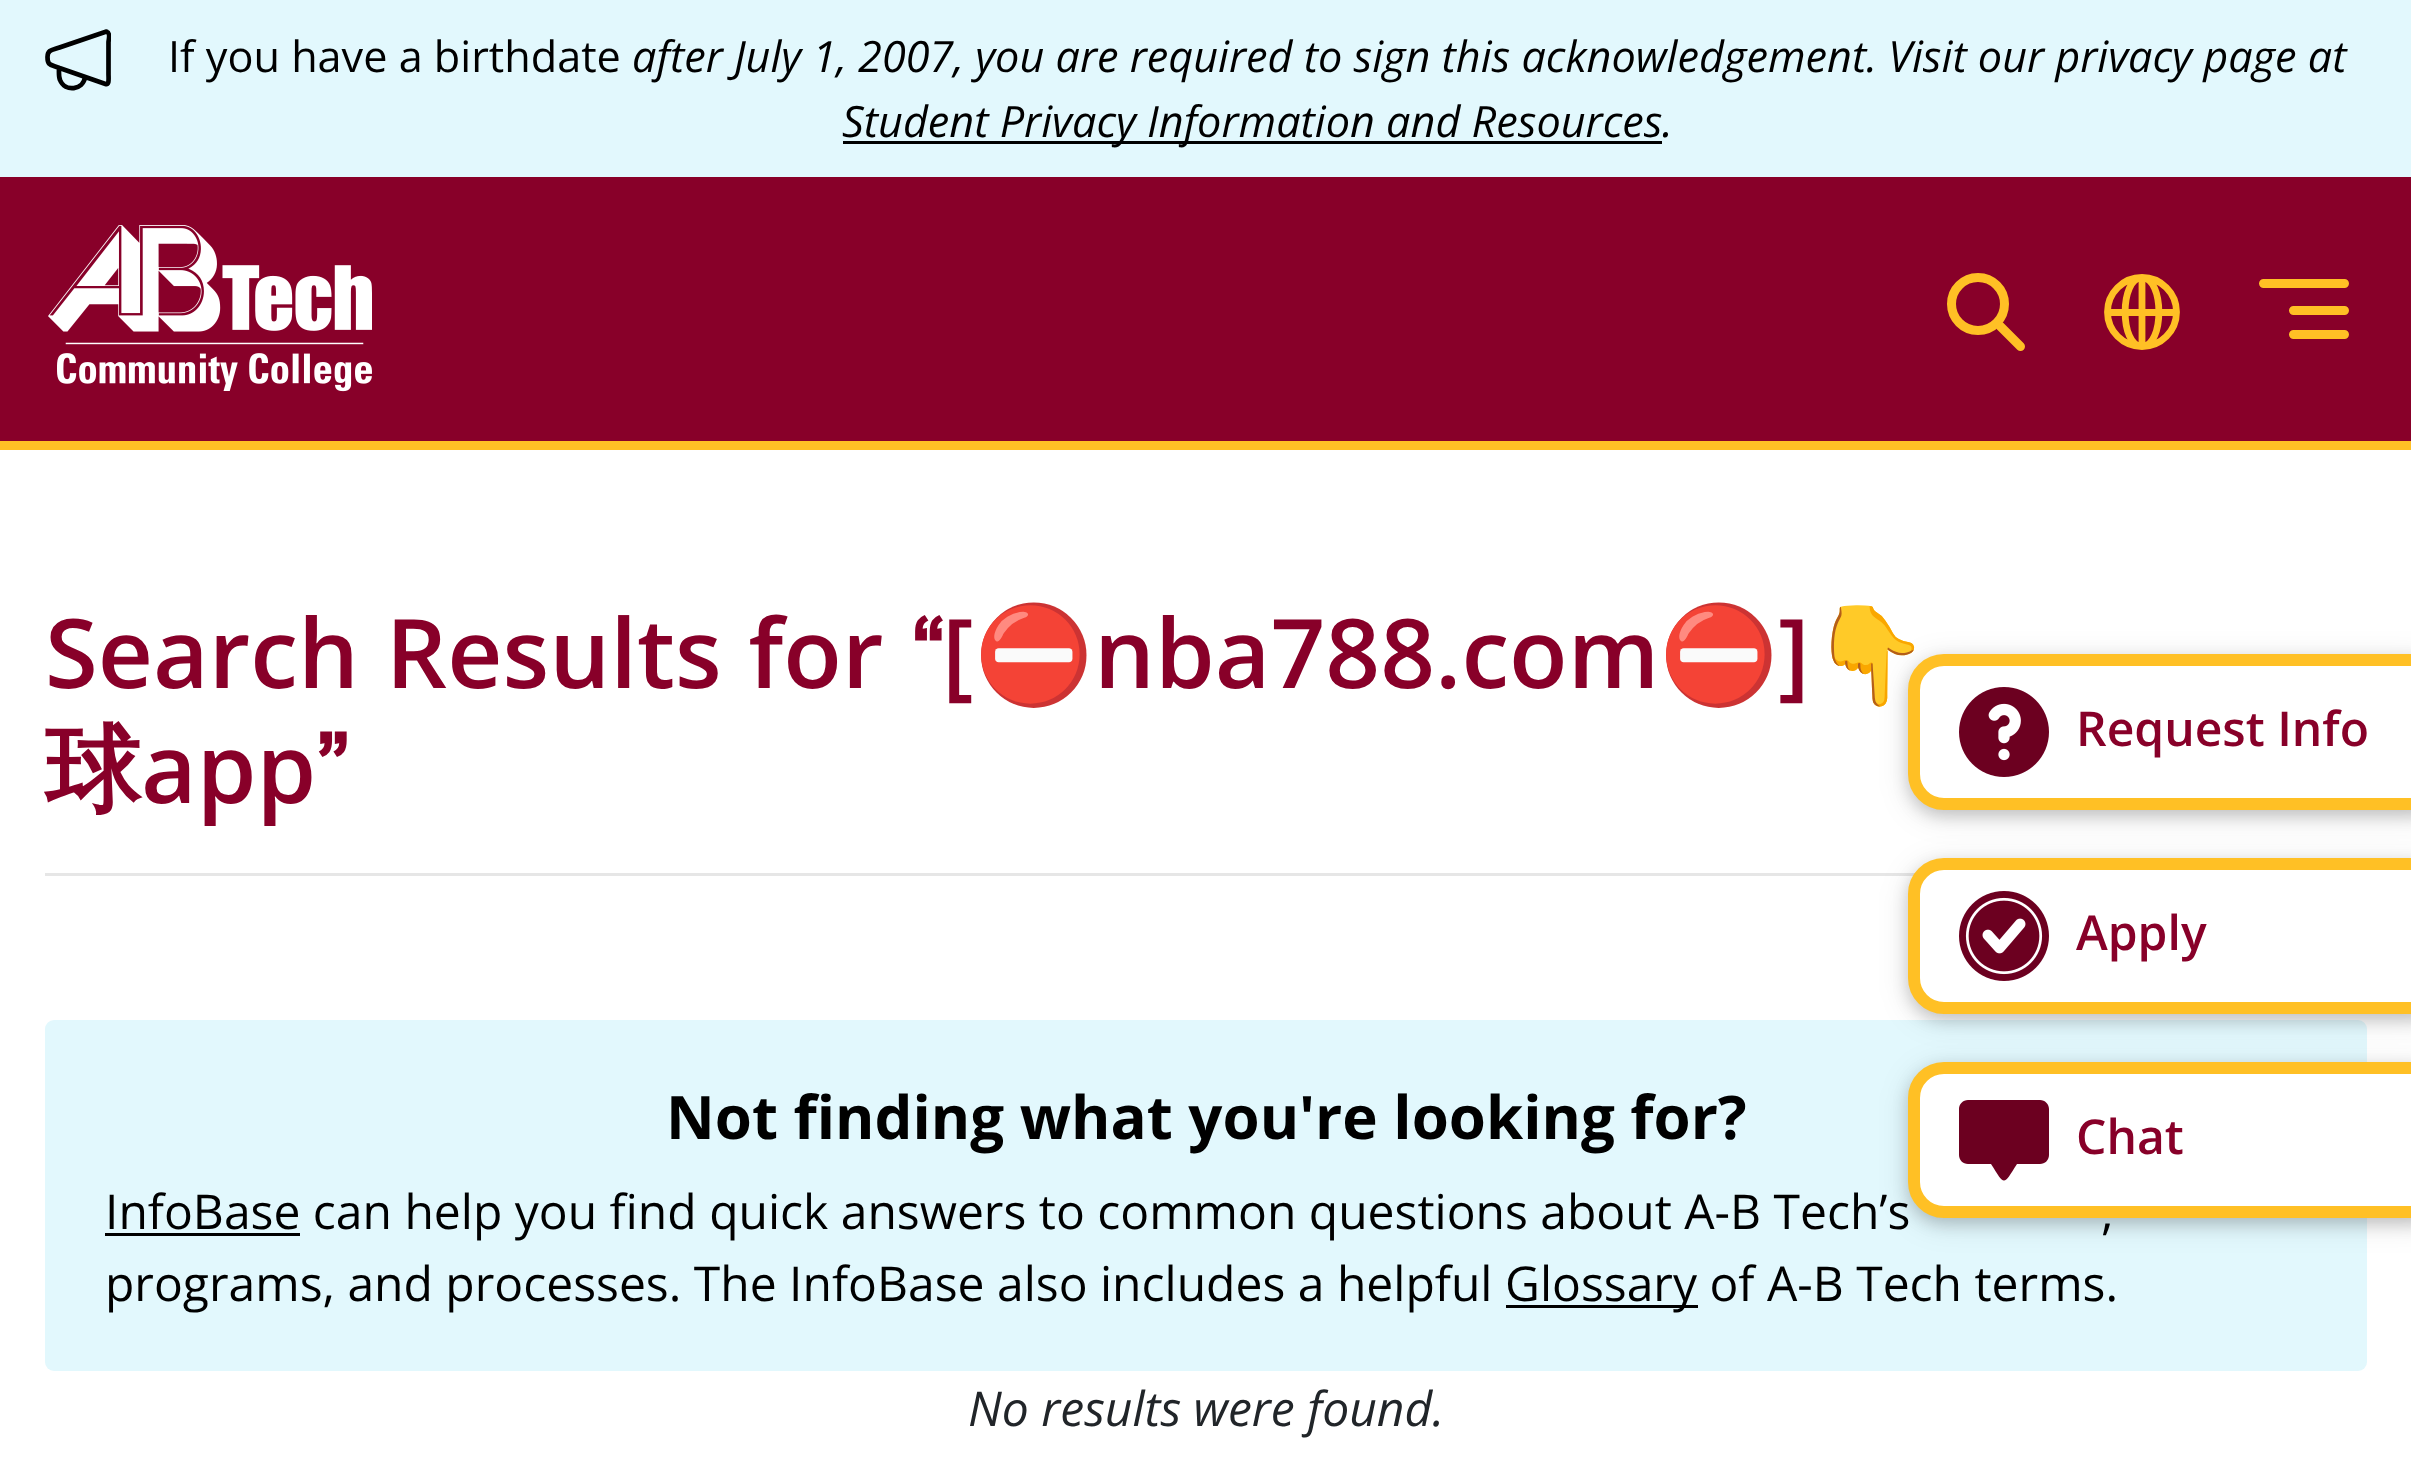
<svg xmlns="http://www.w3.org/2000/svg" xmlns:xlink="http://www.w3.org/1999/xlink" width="2411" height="1473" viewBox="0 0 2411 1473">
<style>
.cls-1{font:43.2px Open Sans;fill:#000000}
.cls-2{font:italic 43.2px Open Sans;fill:#000000}
.cls-3{font:600 96px Open Sans;fill:#880029}
.cls-4{font:bold 96px WenQuanYi Zen Hei;fill:#880029}
.cls-5{font:bold 96px Noto Color Emoji;fill:#880029}
.cls-6{font:bold 60px Open Sans;fill:#000000}
.cls-7{font:48px Open Sans;fill:#000000}
.cls-8{font:italic 48px Open Sans;fill:#212529}
.cls-9{font:600 48px Open Sans;fill:#880029}
</style>
<defs>
<clipPath id="clip1"><rect x="45" y="27" width="66" height="66"/></clipPath>
</defs>
<rect width="100%" height="100%" fill="#ffffff"/>
<rect fill="#e2f8fd" x="0" y="0" width="2411" height="177"/>
<g clip-path="url(#clip1)">
<path fill="none" stroke="#000000" stroke-width="4.7" stroke-linecap="round" stroke-linejoin="round" d="M85 77C83.5 90 65 92.5 60 80C58.5 76.5 59 72 59 68M105.5 84L59.5 68C50.5 64.5 47.5 66 47.5 57C47.5 49.5 52.5 50 59.5 47.5L106.5 31.5L107 32C110.5 33 108.5 41.5 108.5 42V73.5C108.5 78.5 109.5 85.5 105.5 84"/>
</g>
<rect fill="#000000" x="843" y="141" width="819" height="3"/>
<rect fill="#880029" x="0" y="177" width="2411" height="264"/>
<rect fill="#ffc025" x="0" y="441" width="2411" height="9"/>
<image xlink:href="image0.png" x="48" y="225" width="324" height="167"/>
<circle fill="none" stroke="#ffc025" stroke-width="9" cx="1978" cy="304" r="26.5"/>
<path fill="none" stroke="#ffc025" stroke-width="9" stroke-linecap="round" stroke-linejoin="round" d="M2000 326L2020.5 346.5"/>
<path fill="none" stroke="#ffc025" stroke-width="6.8" d="M2142 346.5C2161 346.5 2176.5 331 2176.5 312C2176.5 293 2161 277.5 2142 277.5M2142 346.5C2123 346.5 2107.5 331 2107.5 312C2107.5 293 2123 277.5 2142 277.5M2142 346.5C2164.5 346.5 2164.5 277.5 2142 277.5M2142 346.5C2119.5 346.5 2119.5 277.5 2142 277.5M2142 277.5V346.5M2107.5 312.5H2176.5"/>
<rect fill="#ffc025" stroke="#ffc025" stroke-width="3" x="2260.5" y="280.5" width="87" height="6" rx="3"/>
<rect fill="#ffc025" stroke="#ffc025" stroke-width="3" x="2290.5" y="307.5" width="57" height="6" rx="3"/>
<rect fill="#ffc025" stroke="#ffc025" stroke-width="3" x="2290.5" y="331.5" width="57" height="6" rx="3"/>
<rect fill="#e6e6e6" x="45" y="873" width="1870" height="3"/>
<rect fill="#e2f8fd" x="45" y="1020" width="2322" height="351" rx="9"/>
<rect fill="#000000" x="105" y="1233" width="195" height="3"/>
<rect fill="#000000" x="1506" y="1305" width="192" height="3"/>
<rect fill="#000000" fill-opacity="0.16" filter="blur(7.5px)" x="1908" y="660" width="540" height="156" rx="36"/>
<rect fill="#000000" fill-opacity="0.16" filter="blur(7.5px)" x="1908" y="864" width="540" height="156" rx="36"/>
<rect fill="#000000" fill-opacity="0.12" filter="blur(15px)" x="1908" y="1068" width="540" height="156" rx="36"/>
<rect fill="#000000" fill-opacity="0.16" filter="blur(7.5px)" x="1908" y="1068" width="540" height="156" rx="36"/>
<text class="cls-1" x="168" y="72">If you have a birthdate</text>
<text class="cls-2" x="632" y="72">after July 1, 2007, you are required to sign this acknowledgement. Visit our privacy page at</text>
<text class="cls-2" x="842" y="137">Student Privacy Information and Resources</text>
<text class="cls-2" x="1662" y="137">.</text>
<text class="cls-3" x="45" y="688" word-spacing="2">Search Results for</text>
<text class="cls-4" x="911" y="688">“</text>
<text class="cls-3" x="942" y="688">[</text>
<text class="cls-5" x="974" y="688">⛔</text>
<text class="cls-3" x="1094" y="688">nba788.com</text>
<text class="cls-5" x="1659" y="688">⛔</text>
<text class="cls-3" x="1778" y="688">]</text>
<text class="cls-5" x="1810" y="688">👇</text>
<text class="cls-4" x="45" y="803">球</text>
<text class="cls-4" x="316" y="803">”</text>
<text class="cls-3" x="141" y="803">app</text>
<text class="cls-6" x="666" y="1139">Not finding what you're looking for?</text>
<text class="cls-7" x="105" y="1229">InfoBase can help you find quick answers to common questions about A-B Tech’s</text>
<text class="cls-7" x="2101" y="1229">,</text>
<text class="cls-7" x="105" y="1301">programs, and processes. The InfoBase also includes a helpful</text>
<text class="cls-7" x="1505" y="1301">Glossary of A-B Tech terms.</text>
<text class="cls-8" x="968" y="1426">No results were found.</text>
<rect fill="#ffffff" stroke="#ffc025" stroke-width="12" x="1914" y="1068" width="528" height="144" rx="30"/>
<rect fill="#000000" fill-opacity="0.12" filter="blur(15px)" x="1908" y="864" width="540" height="156" rx="36"/>
<rect fill="#ffffff" stroke="#ffc025" stroke-width="12" x="1914" y="864" width="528" height="144" rx="30"/>
<rect fill="#000000" fill-opacity="0.12" filter="blur(15px)" x="1908" y="660" width="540" height="156" rx="36"/>
<rect fill="#ffffff" stroke="#ffc025" stroke-width="12" x="1914" y="660" width="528" height="144" rx="30"/>
<image xlink:href="image1.png" x="1959" y="687" width="90" height="90"/>
<image xlink:href="image2.png" x="1959" y="891" width="90" height="90"/>
<text class="cls-9" x="2076" y="746">Request Info</text>
<text class="cls-9" x="2076" y="950">Apply</text>
<path fill="#6c0020" d="M2040 1100H1968C1963 1100 1959 1104 1959 1109V1155C1959 1160 1963 1164 1968 1164H1991C2005 1186 2003 1186 2017 1164H2040C2045 1164 2049 1160 2049 1155V1109C2049 1104 2045 1100 2040 1100Z"/>
<text class="cls-9" x="2076" y="1154">Chat</text>
</svg>
